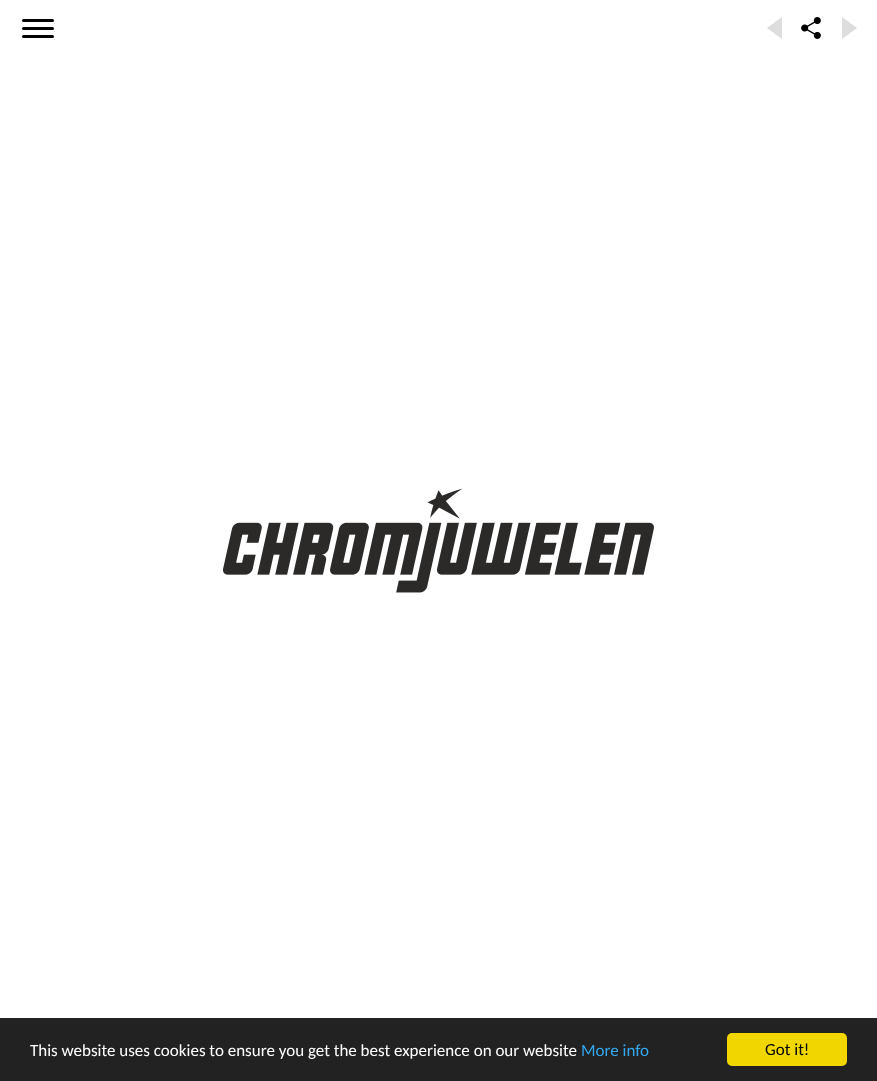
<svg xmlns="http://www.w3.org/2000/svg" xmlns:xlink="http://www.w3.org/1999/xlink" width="877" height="1081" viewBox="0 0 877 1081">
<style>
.cls-1{font:17px Carlito;fill:#ffffff}
.cls-2{font:17px Carlito;fill:#31a8f0}
.cls-3{font:17px Carlito;fill:#000000}
</style>
<rect width="100%" height="100%" fill="#ffffff"/>
<path fill="#dddddd" d="M782 17V39L767 28Z"/>
<path fill="#dddddd" d="M842 39V17L857 28Z"/>
<rect fill="#000000" x="22" y="19" width="32" height="3" rx="1.5"/>
<rect fill="#000000" x="22" y="27" width="32" height="3" rx="1.5"/>
<rect fill="#000000" x="22" y="35" width="32" height="3" rx="1.5"/>
<image xlink:href="image0.png" x="801" y="17" width="20" height="22"/>
<image xlink:href="image1.png" x="223" y="488" width="431" height="105"/>
<rect fill="#222222" x="0" y="1018" width="877" height="63"/>
<rect fill="#f1d600" x="727" y="1033" width="120" height="33" rx="5"/>
<text class="cls-1" x="30" y="1056">This website uses cookies to ensure you get the best experience on our website</text>
<text class="cls-2" x="581" y="1056">More info</text>
<text class="cls-3" x="765" y="1055">Got it!</text>
</svg>
